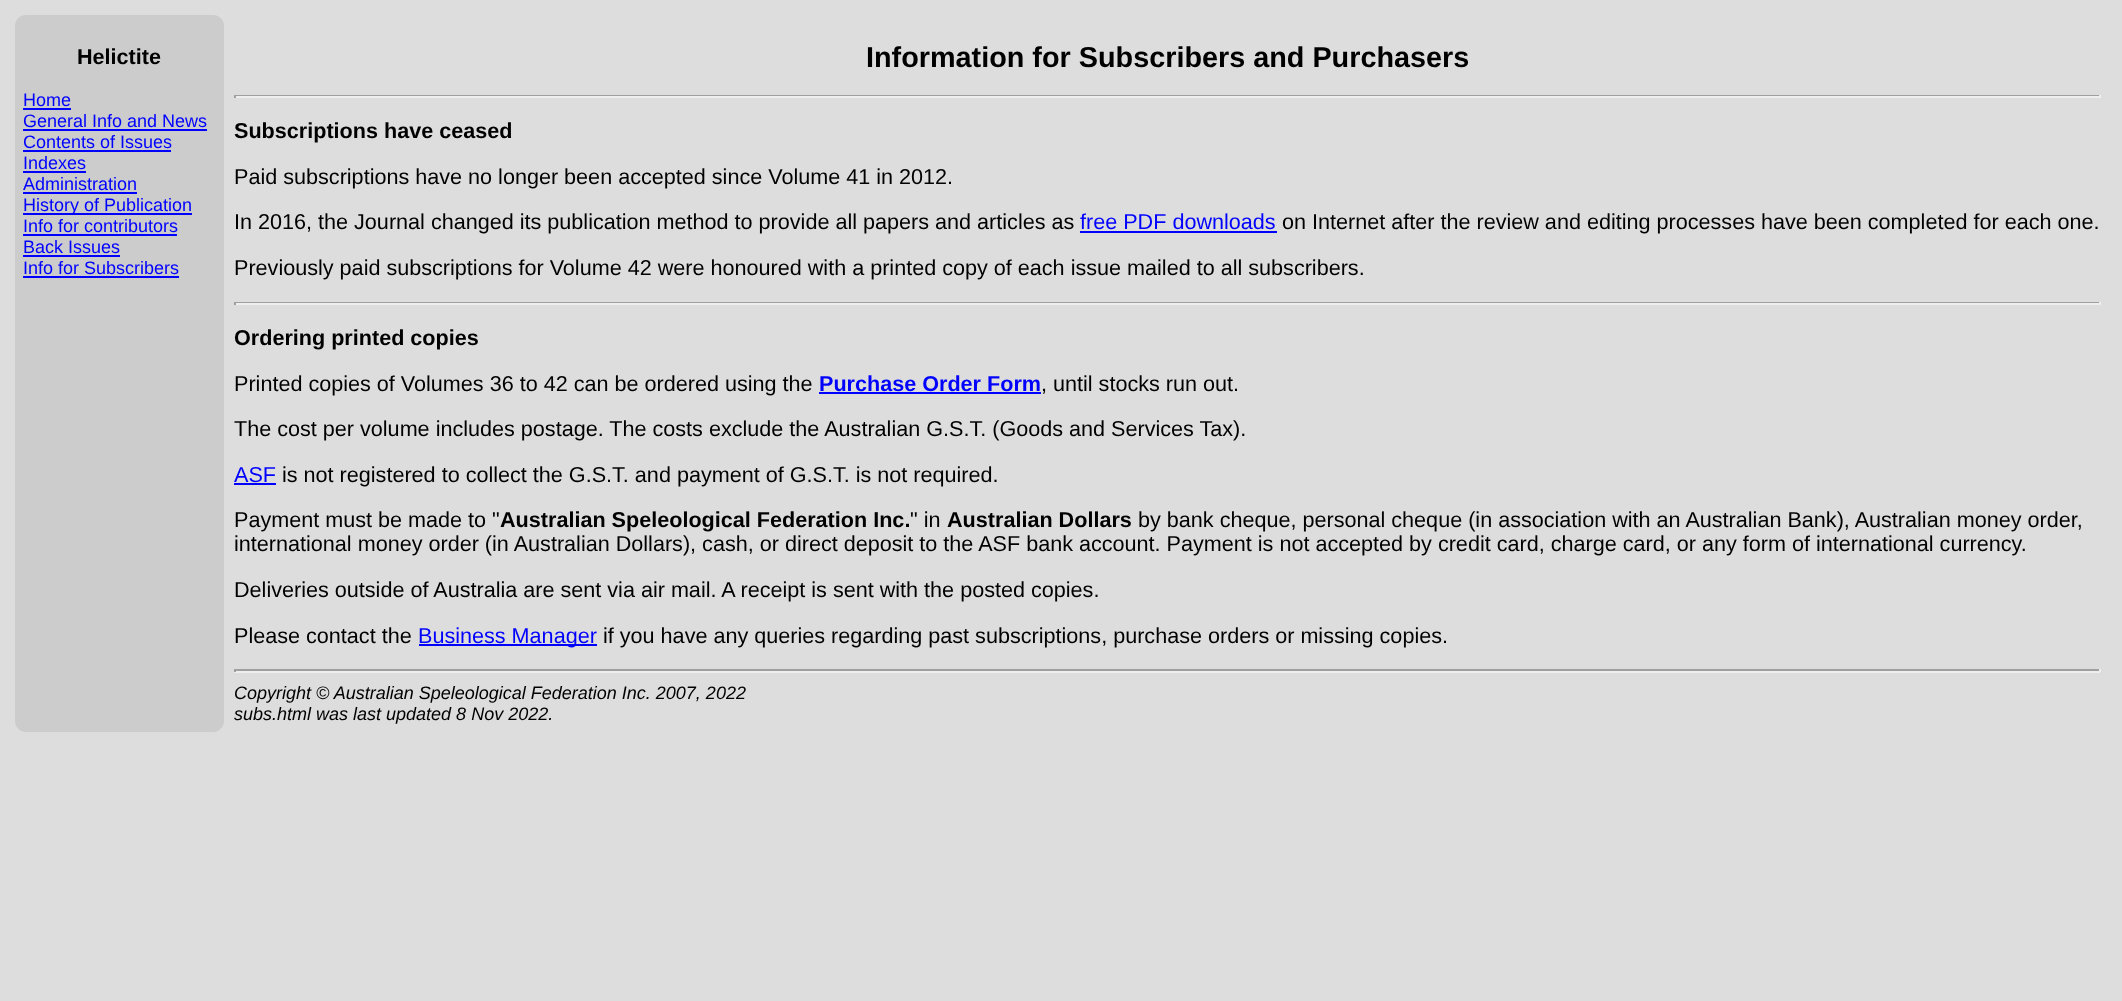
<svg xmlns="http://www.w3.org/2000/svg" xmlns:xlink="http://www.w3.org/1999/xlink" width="2122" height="1001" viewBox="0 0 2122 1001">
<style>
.cls-1{font:bold 21.6px Liberation Sans;fill:#000000}
.cls-2{font:18px Liberation Sans;fill:#0000ff}
.cls-3{font:bold 28.8px Liberation Sans;fill:#000000}
.cls-4{font:21.6px Liberation Sans;fill:#000000}
.cls-5{font:21.6px Liberation Sans;fill:#0000ff}
.cls-6{font:bold 21.6px Liberation Sans;fill:#0000ff}
.cls-7{font:italic 18px Liberation Sans;fill:#000000}
</style>
<rect width="100%" height="100%" fill="#dddddd"/>
<rect fill="#cccccc" x="15" y="15" width="209" height="717" rx="11"/>
<rect fill="#0000ff" x="23" y="108" width="48" height="2"/>
<rect fill="#0000ff" x="23" y="129" width="184" height="2"/>
<rect fill="#0000ff" x="23" y="150" width="148" height="2"/>
<rect fill="#0000ff" x="23" y="171" width="63" height="2"/>
<rect fill="#0000ff" x="23" y="192" width="114" height="2"/>
<rect fill="#0000ff" x="23" y="213" width="169" height="2"/>
<rect fill="#0000ff" x="23" y="234" width="154" height="2"/>
<rect fill="#0000ff" x="23" y="255" width="97" height="2"/>
<rect fill="#0000ff" x="23" y="276" width="156" height="2"/>
<rect fill="#9f9f9f" x="234" y="95" width="1866" height="1"/>
<rect fill="#eeeeee" x="2099" y="95" width="2" height="3"/>
<rect fill="#eeeeee" x="234" y="96" width="1866" height="2"/>
<rect fill="#9f9f9f" x="234" y="95" width="2" height="3"/>
<rect fill="#0000ff" x="1080" y="231" width="197" height="2"/>
<rect fill="#9f9f9f" x="234" y="302" width="1866" height="1"/>
<rect fill="#eeeeee" x="2099" y="302" width="2" height="3"/>
<rect fill="#eeeeee" x="234" y="303" width="1866" height="2"/>
<rect fill="#9f9f9f" x="234" y="302" width="2" height="3"/>
<rect fill="#0000ff" x="819" y="392" width="222" height="2"/>
<rect fill="#0000ff" x="234" y="483" width="42" height="2"/>
<rect fill="#0000ff" x="419" y="644" width="178" height="2"/>
<rect fill="#9f9f9f" x="234" y="669" width="1866" height="2"/>
<rect fill="#eeeeee" x="2099" y="669" width="2" height="3"/>
<rect fill="#eeeeee" x="234" y="671" width="1866" height="2"/>
<rect fill="#9f9f9f" x="234" y="669" width="2" height="3"/>
<text class="cls-1" x="77" y="64">Helictite</text>
<text class="cls-2"><tspan x="23" y="106">Home</tspan><tspan x="23" y="127">General Info and News</tspan><tspan x="23" y="148">Contents of Issues</tspan><tspan x="23" y="169">Indexes</tspan><tspan x="23" y="190">Administration</tspan><tspan x="23" y="211">History of Publication</tspan><tspan x="23" y="232">Info for contributors</tspan><tspan x="23" y="253">Back Issues</tspan><tspan x="23" y="274">Info for Subscribers</tspan></text>
<text class="cls-3" x="866" y="67">Information for Subscribers and Purchasers</text>
<text class="cls-1" x="234" y="138">Subscriptions have ceased</text>
<text class="cls-4" x="234" y="184">Paid subscriptions have no longer been accepted since Volume 41 in 2012.</text>
<text class="cls-4" x="234" y="229">In 2016, the Journal changed its publication method to provide all papers and articles as</text>
<text class="cls-5" x="1080" y="229">free PDF downloads</text>
<text class="cls-4" x="1282" y="229">on Internet after the review and editing processes have been completed for each one.</text>
<text class="cls-4" x="234" y="275">Previously paid subscriptions for Volume 42 were honoured with a printed copy of each issue mailed to all subscribers.</text>
<text class="cls-1" x="234" y="345">Ordering printed copies</text>
<text class="cls-4" x="234" y="391">Printed copies of Volumes 36 to 42 can be ordered using the</text>
<text class="cls-6" x="819" y="391">Purchase Order Form</text>
<text class="cls-4" x="1041" y="391">, until stocks run out.</text>
<text class="cls-4" x="234" y="436">The cost per volume includes postage. The costs exclude the Australian G.S.T. (Goods and Services Tax).</text>
<text class="cls-5" x="234" y="482">ASF</text>
<text class="cls-4" x="282" y="482">is not registered to collect the G.S.T. and payment of G.S.T. is not required.</text>
<text class="cls-4" x="234" y="527">Payment must be made to "</text>
<text class="cls-1" x="500" y="527">Australian Speleological Federation Inc.</text>
<text class="cls-4" x="910" y="527">" in</text>
<text class="cls-1" x="947" y="527">Australian Dollars</text>
<text class="cls-4" x="1138" y="527">by bank cheque, personal cheque (in association with an Australian Bank), Australian money order,</text>
<text class="cls-4" x="234" y="551">international money order (in Australian Dollars), cash, or direct deposit to the ASF bank account. Payment is not accepted by credit card, charge card, or any form of international currency.</text>
<text class="cls-4" x="234" y="597">Deliveries outside of Australia are sent via air mail. A receipt is sent with the posted copies.</text>
<text class="cls-4" x="234" y="643">Please contact the</text>
<text class="cls-5" x="418" y="643">Business Manager</text>
<text class="cls-4" x="603" y="643">if you have any queries regarding past subscriptions, purchase orders or missing copies.</text>
<text class="cls-7"><tspan x="234" y="699">Copyright © Australian Speleological Federation Inc. 2007, 2022</tspan><tspan x="234" y="720">subs.html was last updated 8 Nov 2022.</tspan></text>
</svg>
